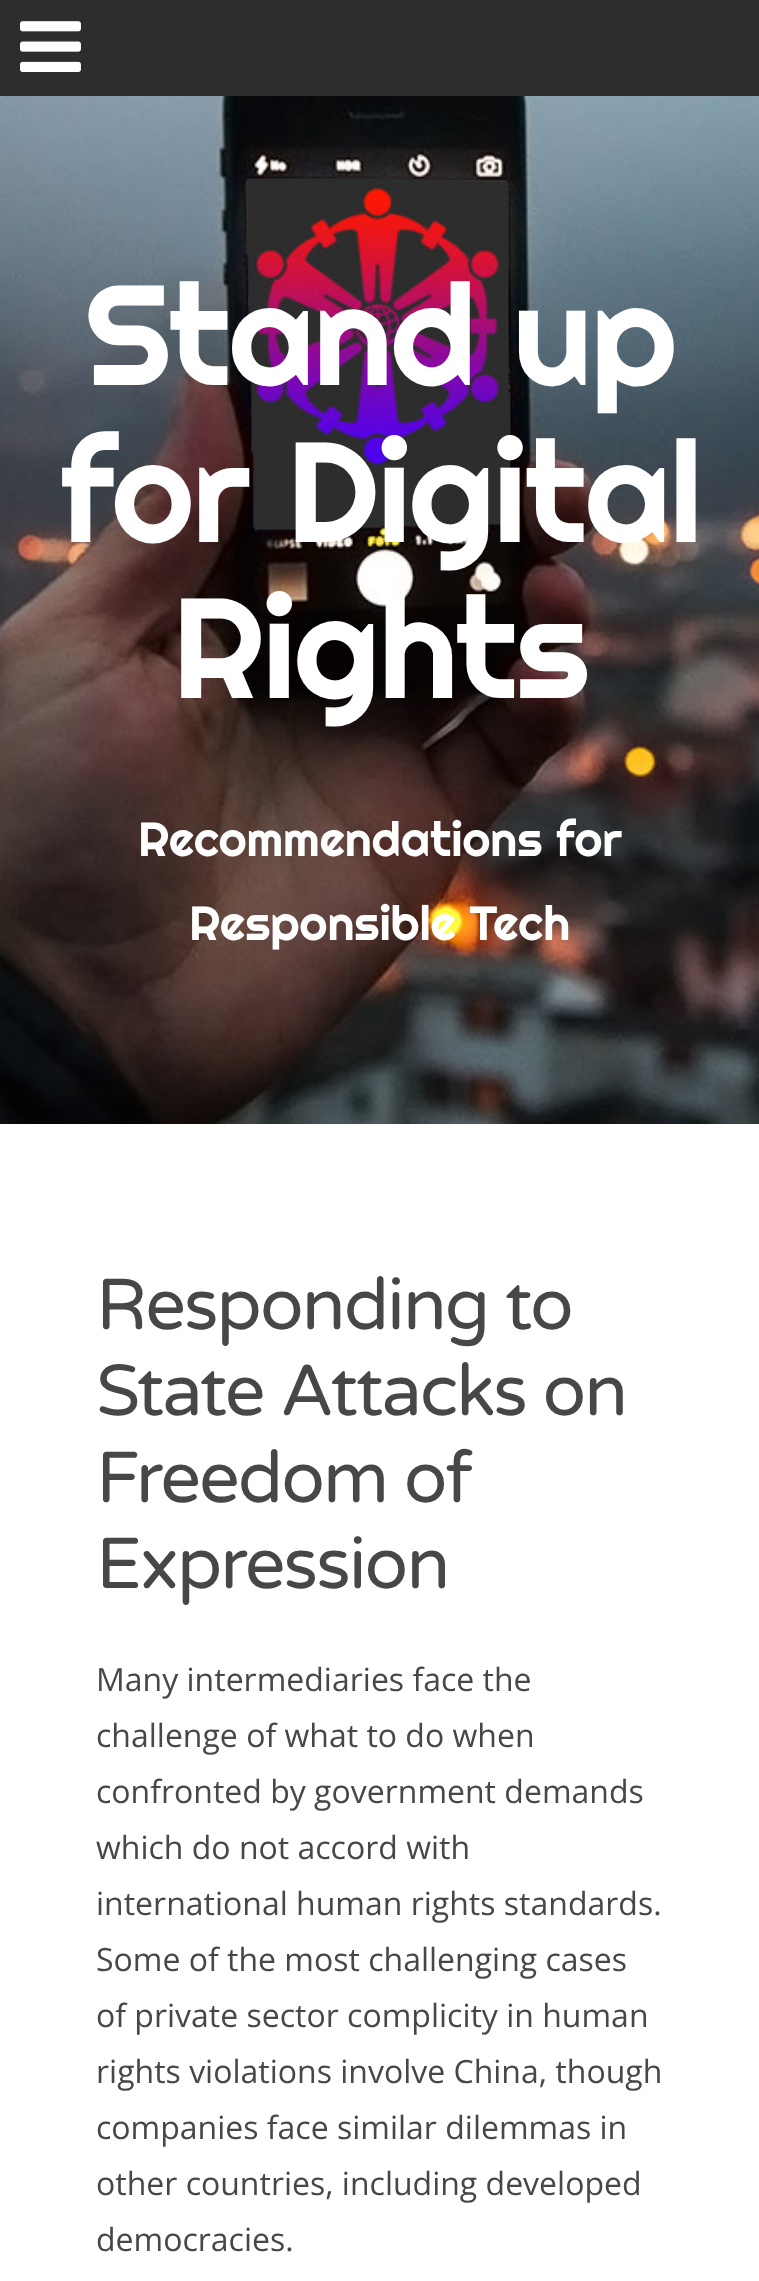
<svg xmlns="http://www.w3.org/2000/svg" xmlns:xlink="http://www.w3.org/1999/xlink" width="759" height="2281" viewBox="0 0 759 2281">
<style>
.cls-1{font:142px Righteous;letter-spacing:-2px;fill:#ffffff}
.cls-2{font:48px Righteous;fill:#ffffff}
.cls-3{font:72px Varela Round;letter-spacing:-2px;fill:#474747}
.cls-4{font:32px Open Sans;fill:#474747}
</style>
<rect width="100%" height="100%" fill="#ffffff"/>
<rect fill="#2d2d2d" x="0" y="0" width="759" height="96"/>
<image xlink:href="image0.png" x="20" y="21" width="61" height="51"/>
<image xlink:href="image1.png" x="0" y="96" width="759" height="1028"/>
<text class="cls-1" x="85" y="385">Stand up</text>
<text class="cls-1" x="59" y="542">for Digital</text>
<text class="cls-1" x="172" y="698">Rights</text>
<text class="cls-2" x="138" y="856">Recommendations for</text>
<text class="cls-2" x="189" y="940">Responsible Tech</text>
<text class="cls-3"><tspan x="96" y="1329">Responding to</tspan><tspan x="96" y="1415">State Attacks on</tspan><tspan x="96" y="1502">Freedom of</tspan><tspan x="96" y="1588">Expression</tspan></text>
<text class="cls-4"><tspan x="96" y="1691">Many intermediaries face the</tspan><tspan x="96" y="1747">challenge of what to do when</tspan><tspan x="96" y="1803">confronted by government demands</tspan><tspan x="96" y="1859">which do not accord with</tspan><tspan x="96" y="1915">international human rights standards.</tspan><tspan x="96" y="1971">Some of the most challenging cases</tspan><tspan x="96" y="2027">of private sector complicity in human</tspan><tspan x="96" y="2083">rights violations involve China, though</tspan><tspan x="96" y="2139">companies face similar dilemmas in</tspan><tspan x="96" y="2195">other countries, including developed</tspan><tspan x="96" y="2251">democracies.</tspan></text>
</svg>
